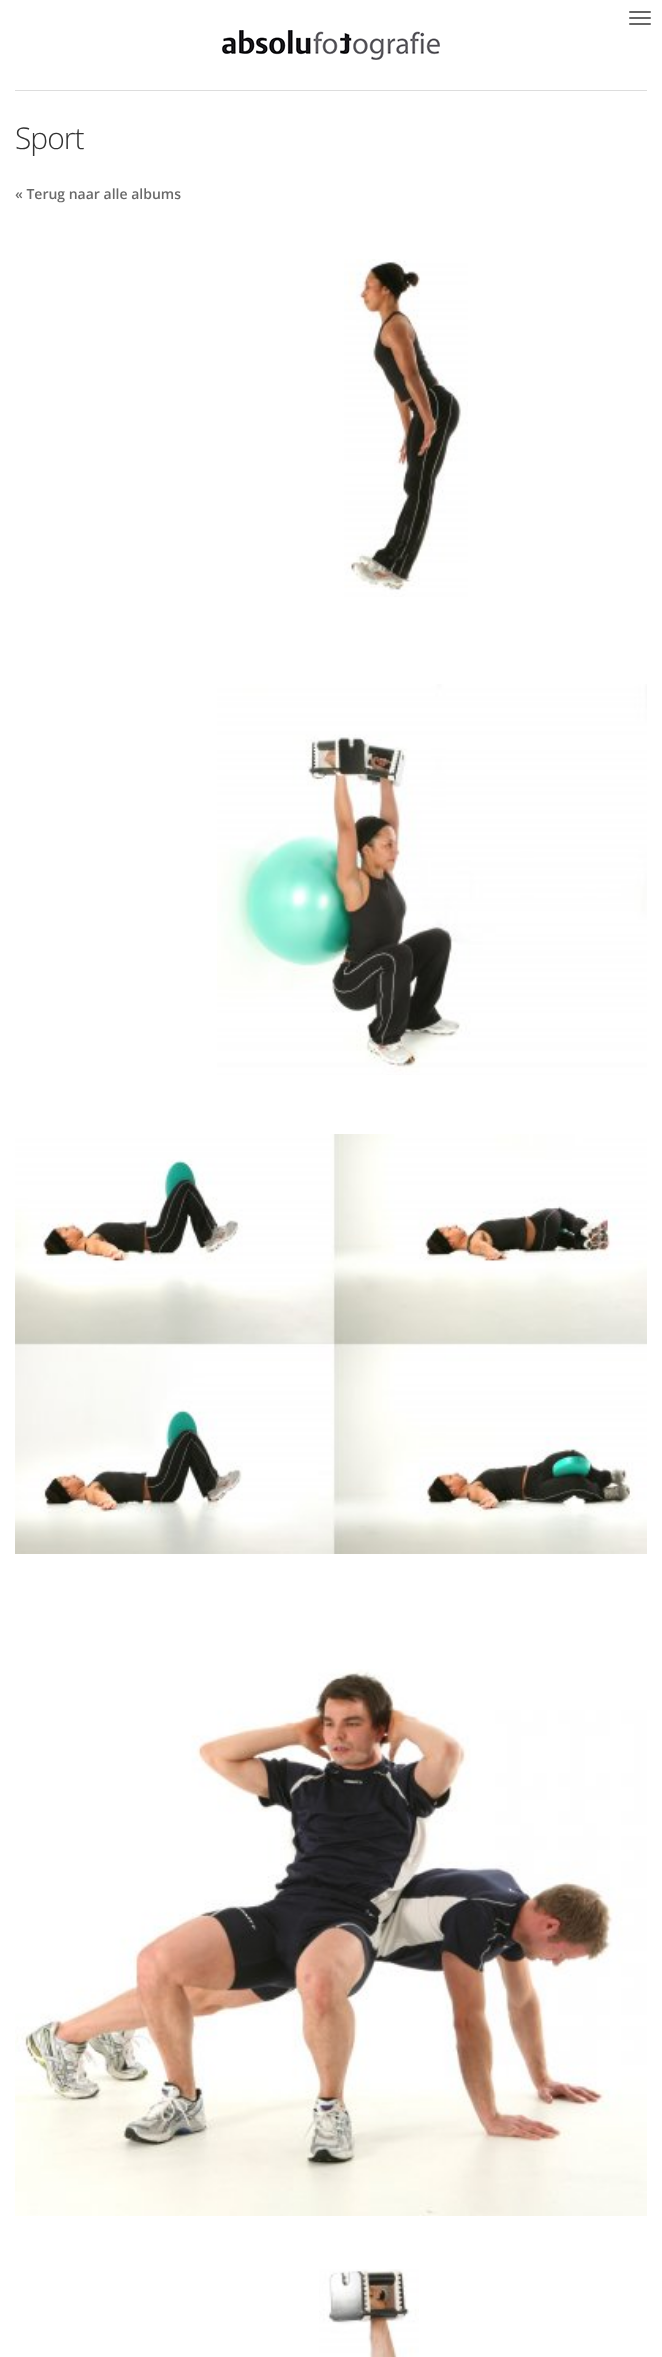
<svg xmlns="http://www.w3.org/2000/svg" xmlns:xlink="http://www.w3.org/1999/xlink" width="662" height="2357" viewBox="0 0 662 2357">
<style>
.cls-1{font:300 30px Open Sans;letter-spacing:-1px;fill:#333333}
.cls-2{font:600 14px Open Sans;fill:#696969}
</style>
<rect width="100%" height="100%" fill="#ffffff"/>
<rect fill="#656565" x="629" y="11" width="22" height="2" rx="1"/>
<rect fill="#656565" x="629" y="17" width="22" height="2" rx="1"/>
<rect fill="#656565" x="629" y="23" width="22" height="2" rx="1"/>
<image xlink:href="image0.png" x="222" y="30" width="218" height="30"/>
<rect fill="#dddddd" x="15" y="90" width="632" height="1"/>
<image xlink:href="image1.png" x="344" y="259" width="124" height="338"/>
<image xlink:href="image2.png" x="217" y="684" width="430" height="391"/>
<image xlink:href="image3.png" x="15" y="1134" width="632" height="420"/>
<image xlink:href="image4.png" x="15" y="1669" width="632" height="547"/>
<image xlink:href="image5.png" x="319" y="2269" width="100" height="88"/>
<text class="cls-1" x="15" y="149">Sport</text>
<text class="cls-2" x="15" y="199">« Terug naar alle albums</text>
</svg>
